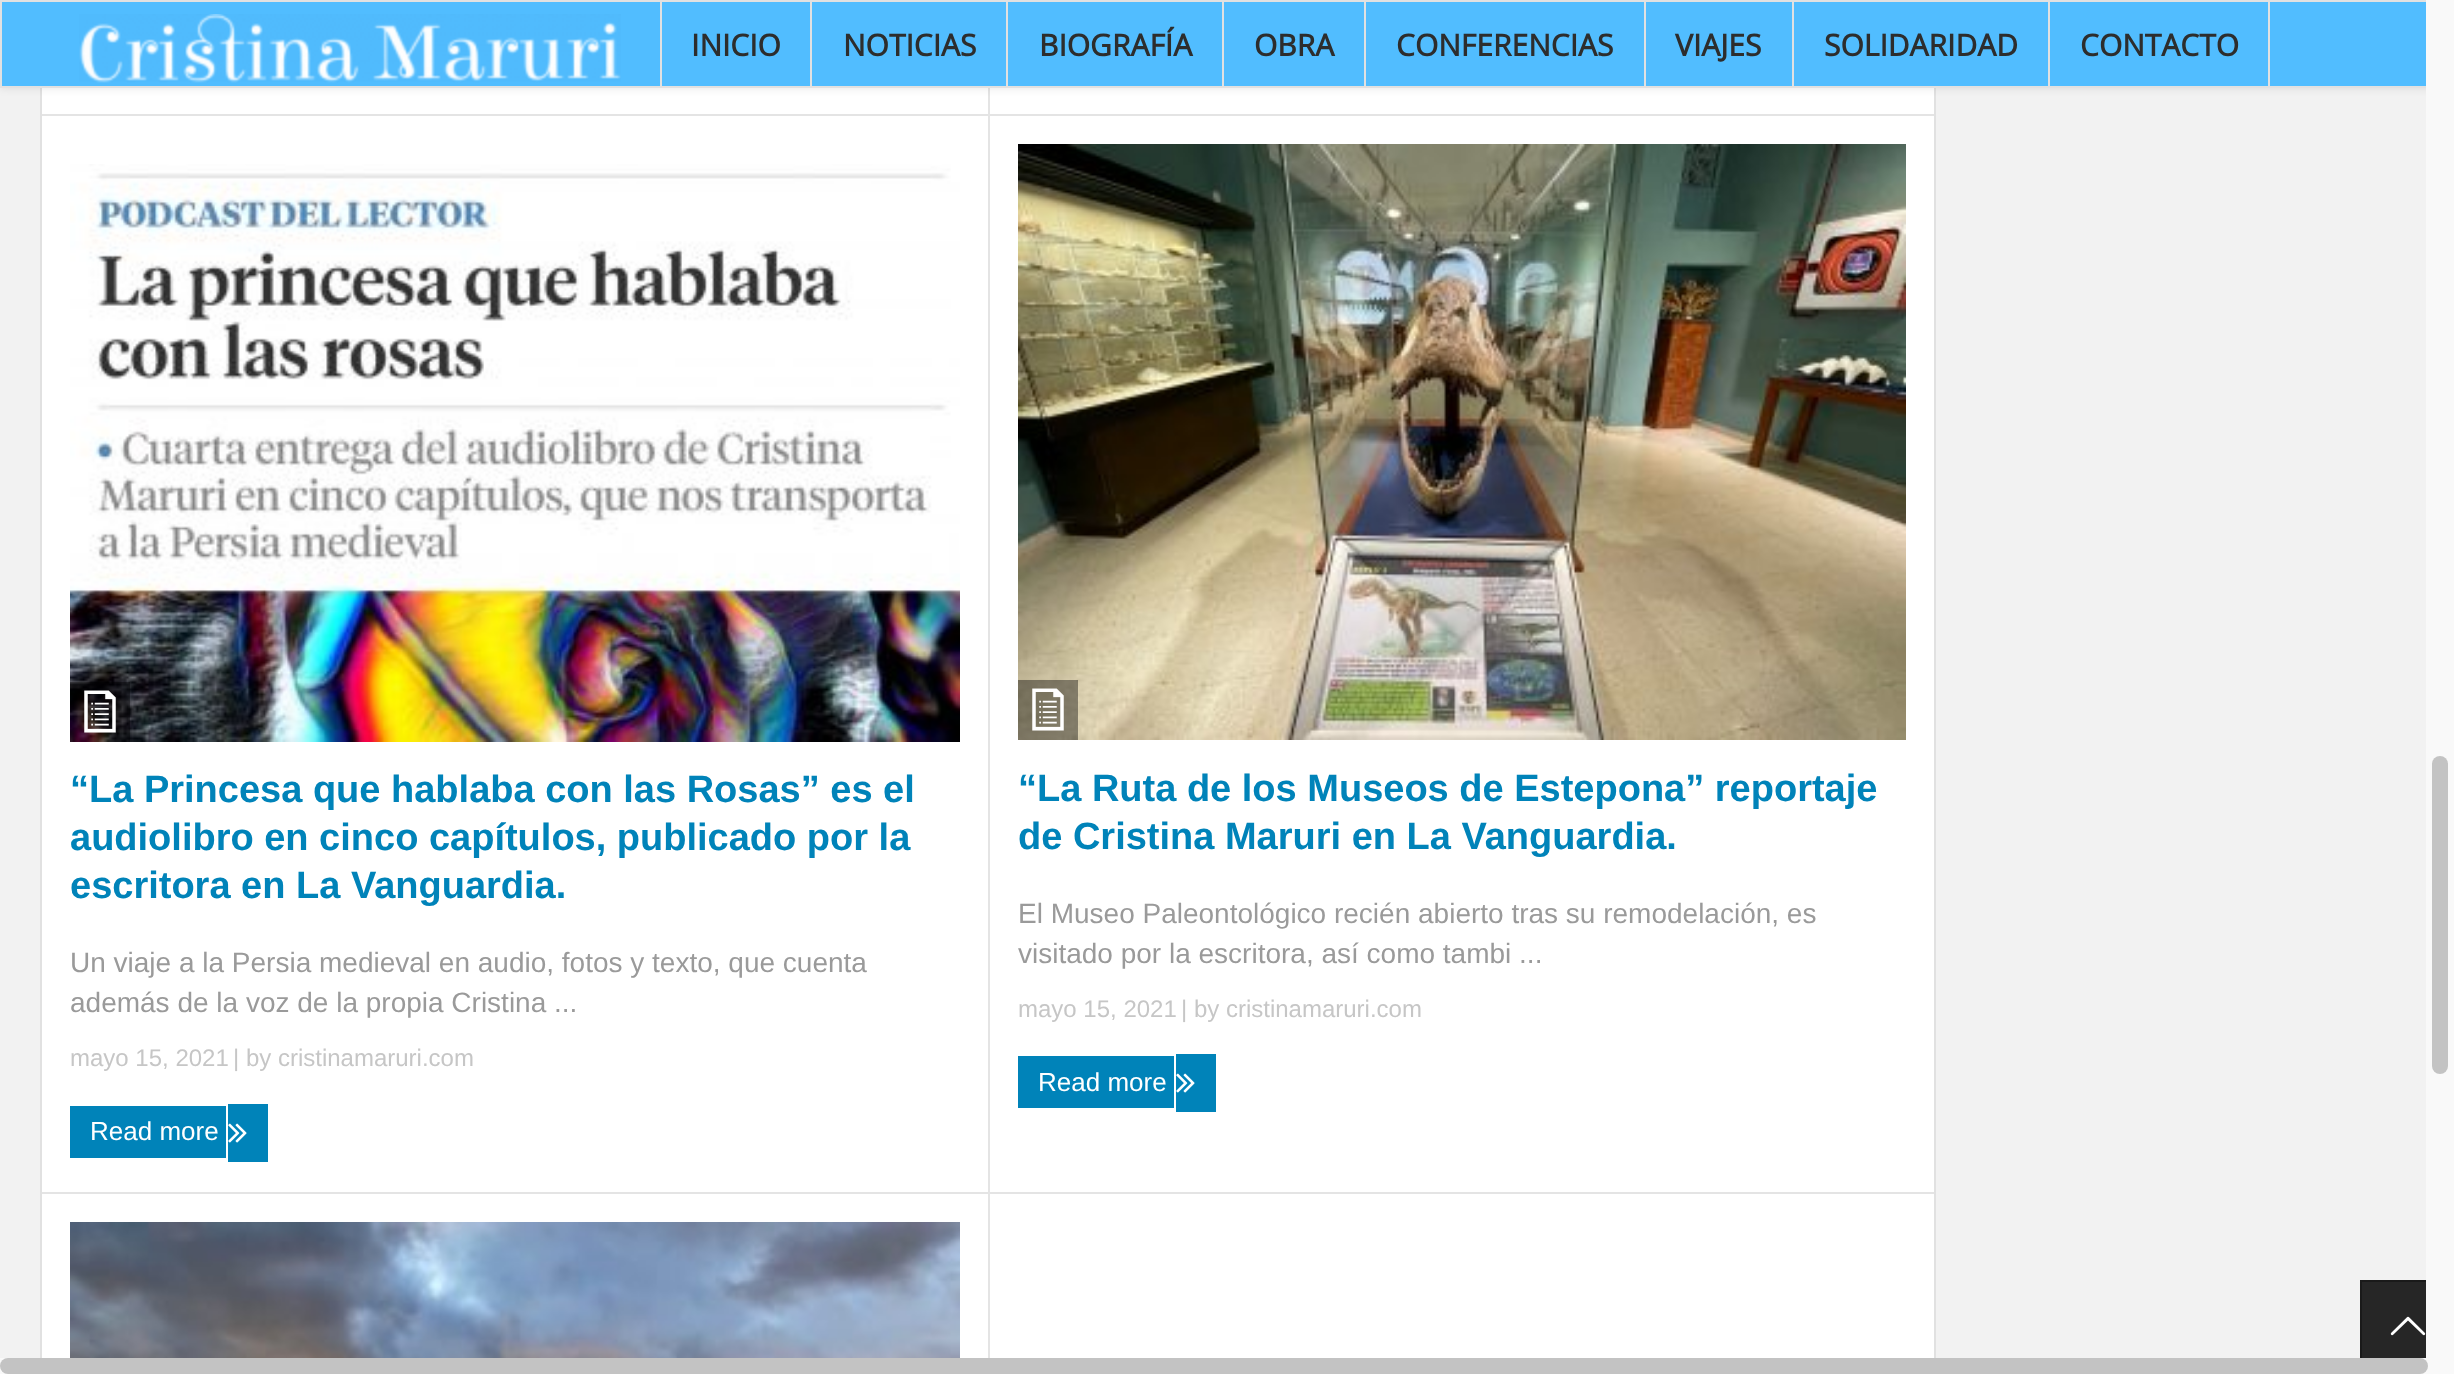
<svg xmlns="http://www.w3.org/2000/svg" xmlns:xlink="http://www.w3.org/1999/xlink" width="2454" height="1374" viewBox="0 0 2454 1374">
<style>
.cls-1{font:bold 30px Open Sans;fill:#2d2d2d}
.cls-2{font:bold 38px Liberation Sans;fill:#0083b9}
.cls-3{font:28px Liberation Sans;fill:#9a9a9a}
.cls-4{font:24px Liberation Sans;fill:#c6c6c6}
.cls-5{font:26px Liberation Sans;fill:#ffffff}
</style>
<rect width="100%" height="100%" fill="#f2f2f2"/>
<rect fill="#ffffff" x="42" y="88" width="1892" height="1270"/>
<rect fill="none" stroke="#e1e1e1" stroke-width="2" x="41" y="-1" width="1894" height="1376"/>
<rect fill="#e4e4e4" x="988" y="88" width="2" height="1270"/>
<rect fill="#000000" fill-opacity="0.1" filter="blur(4px)" x="0" y="0" width="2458" height="88"/>
<rect fill="#51bdff" x="2" y="2" width="2424" height="84"/>
<rect fill="none" stroke="#e1e1e1" stroke-width="2" x="1" y="1" width="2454" height="86"/>
<image xlink:href="image0.png" x="79" y="14" width="542" height="69"/>
<rect fill="#e1e1e1" x="810" y="2" width="2" height="84"/>
<rect fill="#e1e1e1" x="660" y="2" width="2" height="84"/>
<rect fill="#e1e1e1" x="1006" y="2" width="2" height="84"/>
<rect fill="#e1e1e1" x="1222" y="2" width="2" height="84"/>
<rect fill="#e1e1e1" x="1364" y="2" width="2" height="84"/>
<rect fill="#e1e1e1" x="1644" y="2" width="2" height="84"/>
<rect fill="#e1e1e1" x="1792" y="2" width="2" height="84"/>
<rect fill="#e1e1e1" x="2048" y="2" width="2" height="84"/>
<rect fill="#e1e1e1" x="2268" y="2" width="2" height="84"/>
<rect fill="#e4e4e4" x="42" y="114" width="1892" height="2"/>
<image xlink:href="image1.png" x="70" y="164" width="890" height="578"/>
<rect fill="#000000" fill-opacity="0.4" x="70" y="682" width="60" height="60"/>
<image xlink:href="image2.png" x="84" y="690" width="32" height="43"/>
<rect fill="#0083b9" x="70" y="1106" width="156" height="52"/>
<rect fill="#0083b9" x="228" y="1104" width="40" height="58"/>
<image xlink:href="image3.png" x="228" y="1123" width="19" height="20"/>
<image xlink:href="image4.png" x="1018" y="144" width="888" height="596"/>
<rect fill="#000000" fill-opacity="0.4" x="1018" y="680" width="60" height="60"/>
<image xlink:href="image5.png" x="1032" y="688" width="32" height="43"/>
<rect fill="#0083b9" x="1018" y="1056" width="156" height="52"/>
<rect fill="#0083b9" x="1176" y="1054" width="40" height="58"/>
<image xlink:href="image3.png" x="1176" y="1073" width="19" height="20"/>
<rect fill="#e4e4e4" x="42" y="1192" width="1892" height="2"/>
<image xlink:href="image6.png" x="70" y="1222" width="890" height="136"/>
<rect fill="#262626" x="2362" y="1282" width="64" height="76"/>
<rect fill="none" stroke="#1a1a1a" stroke-width="2" x="2361" y="1281" width="92" height="92"/>
<image xlink:href="image7.png" x="2390" y="1316" width="36" height="20"/>
<rect fill="#f9f9f9" x="2426" y="0" width="28" height="1358"/>
<rect fill="#c3c3c3" x="2432" y="756" width="16" height="318" rx="8"/>
<rect fill="#f9f9f9" x="0" y="1358" width="2454" height="16"/>
<rect fill="#c3c3c3" x="0" y="1358" width="2428" height="16" rx="8"/>
<text class="cls-1" x="691" y="56">INICIO</text>
<text class="cls-1" x="843" y="56">NOTICIAS</text>
<text class="cls-1" x="1039" y="56">BIOGRAFÍA</text>
<text class="cls-1" x="1254" y="56">OBRA</text>
<text class="cls-1" x="1396" y="56">CONFERENCIAS</text>
<text class="cls-1" x="1675" y="56">VIAJES</text>
<text class="cls-1" x="1824" y="56">SOLIDARIDAD</text>
<text class="cls-1" x="2080" y="56">CONTACTO</text>
<text class="cls-2"><tspan x="70" y="802">“La Princesa que hablaba con las Rosas” es el</tspan><tspan x="70" y="850">audiolibro en cinco capítulos, publicado por la</tspan><tspan x="70" y="898">escritora en La Vanguardia.</tspan></text>
<text class="cls-3"><tspan x="70" y="972">Un viaje a la Persia medieval en audio, fotos y texto, que cuenta</tspan><tspan x="70" y="1012">además de la voz de la propia Cristina ...</tspan></text>
<text class="cls-4" x="70" y="1066">mayo 15, 2021</text>
<text class="cls-4" x="233" y="1066">| by cristinamaruri.com</text>
<text class="cls-5" x="90" y="1140">Read more</text>
<text class="cls-2"><tspan x="1018" y="801">“La Ruta de los Museos de Estepona” reportaje</tspan><tspan x="1018" y="849">de Cristina Maruri en La Vanguardia.</tspan></text>
<text class="cls-3"><tspan x="1018" y="923">El Museo Paleontológico recién abierto tras su remodelación, es</tspan><tspan x="1018" y="963">visitado por la escritora, así como tambi ...</tspan></text>
<text class="cls-4" x="1018" y="1017">mayo 15, 2021</text>
<text class="cls-4" x="1181" y="1017">| by cristinamaruri.com</text>
<text class="cls-5" x="1038" y="1091">Read more</text>
</svg>
